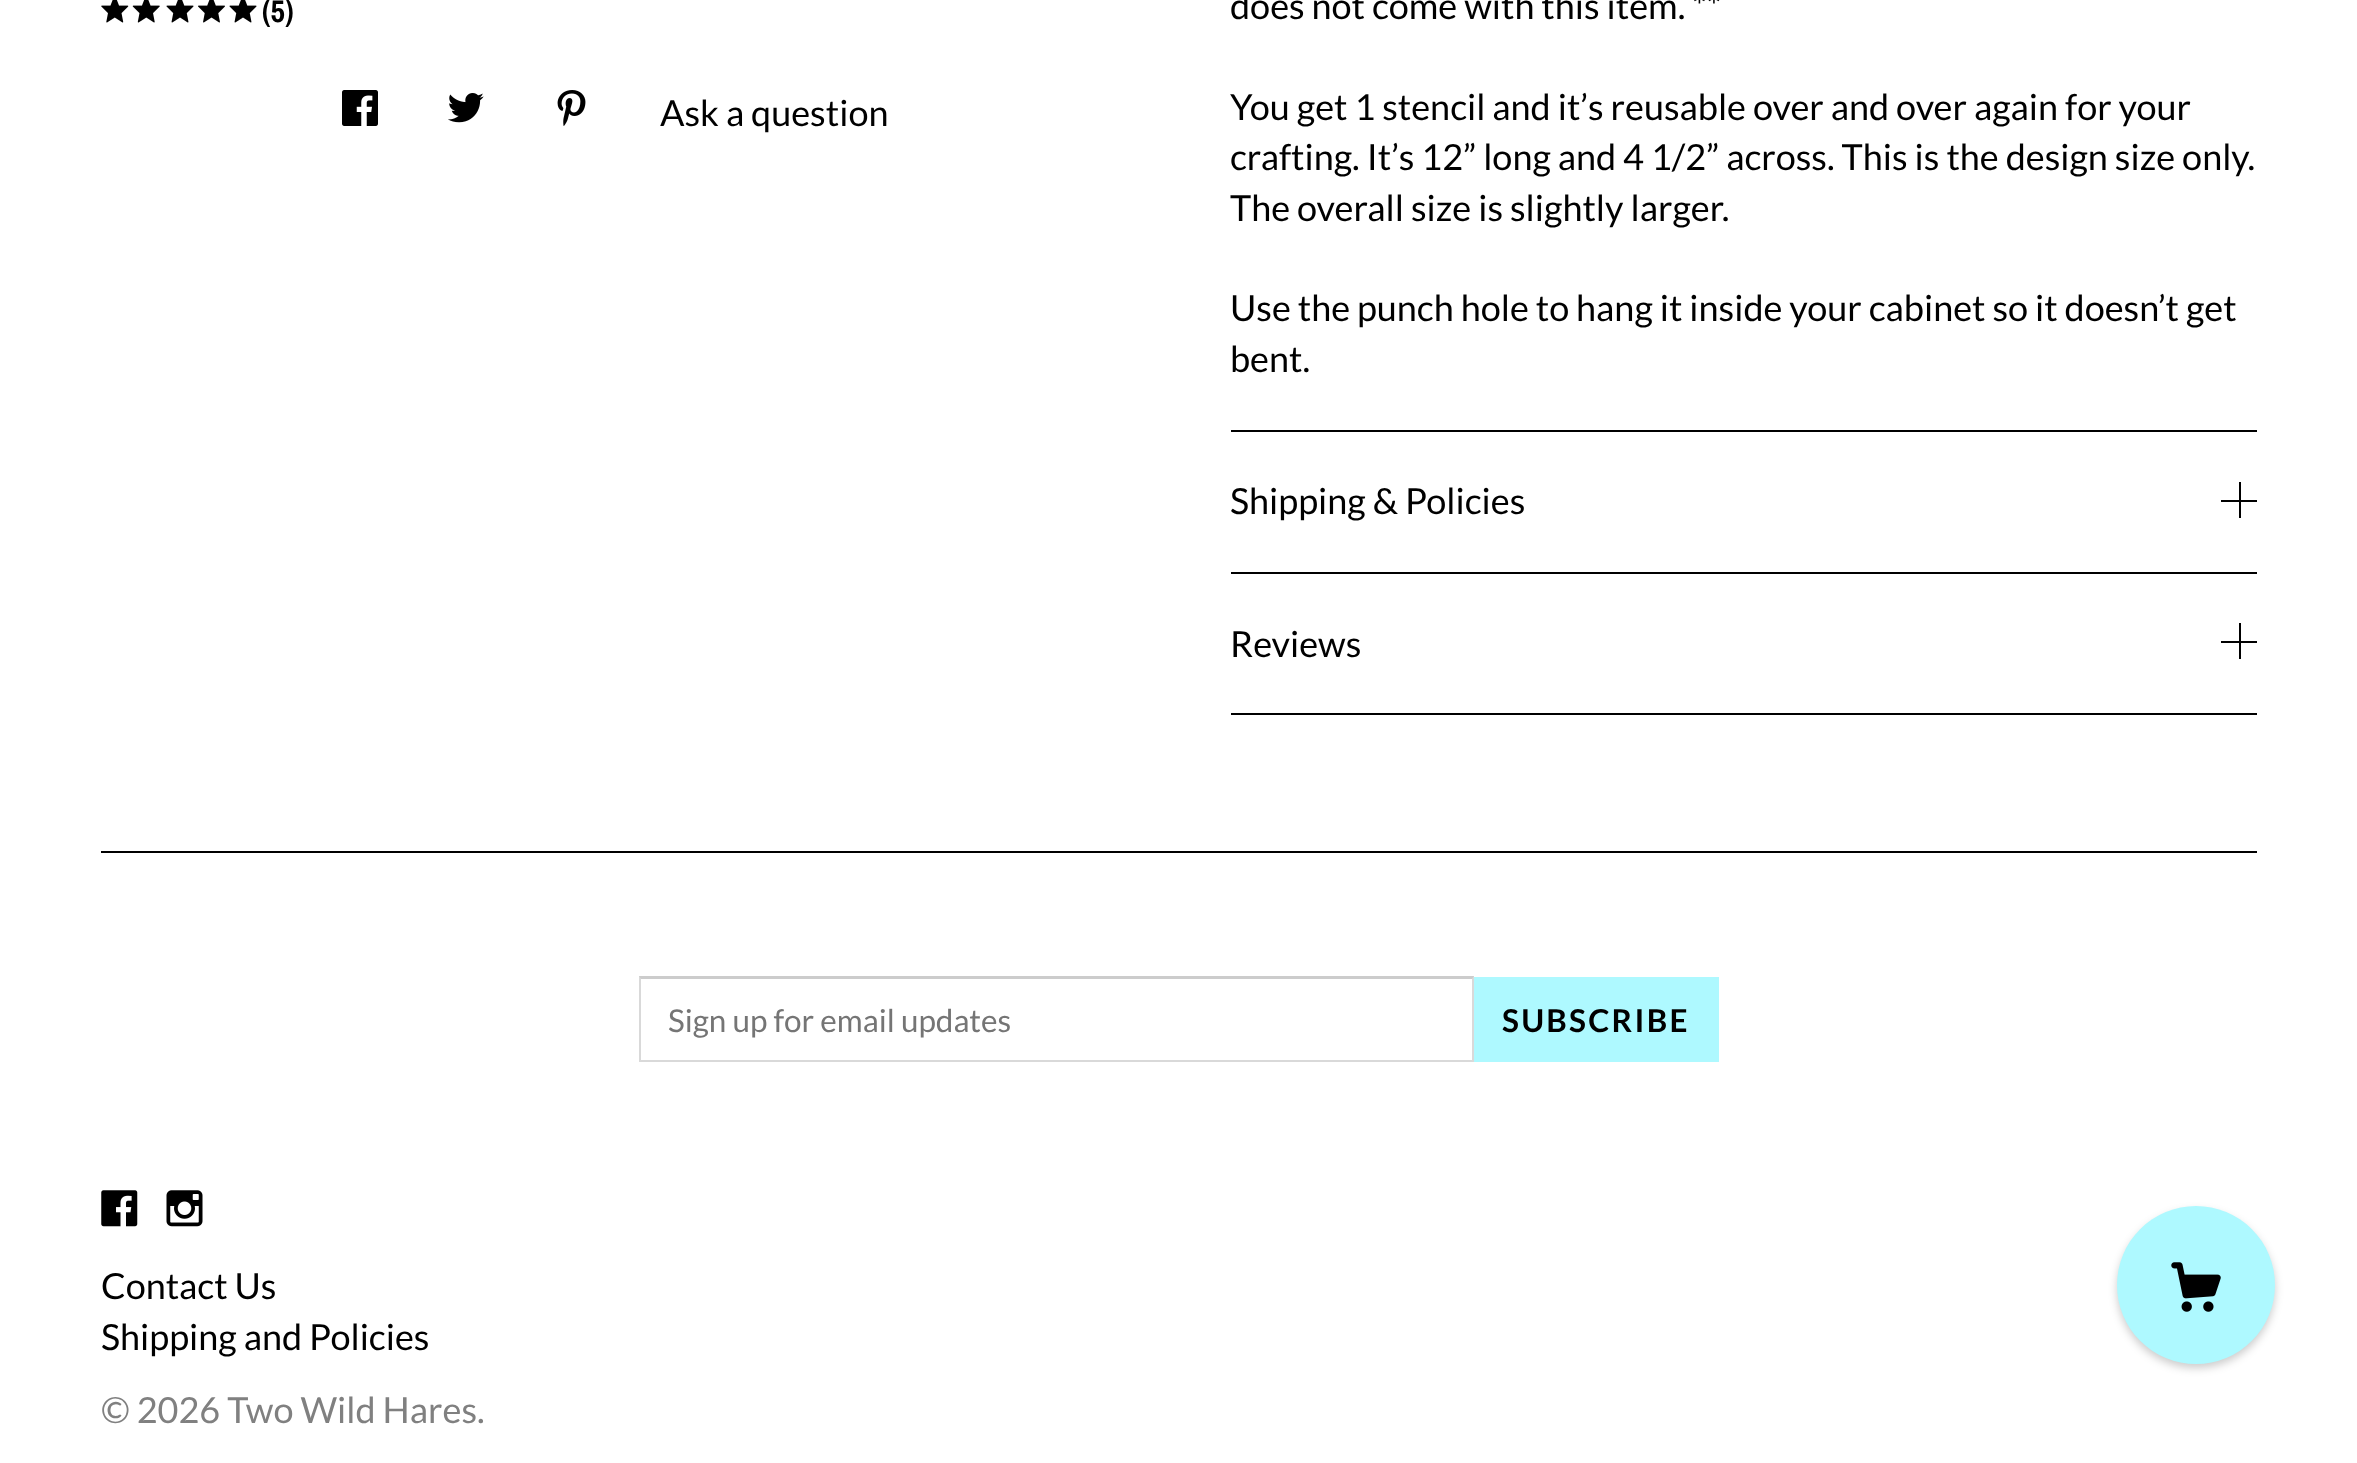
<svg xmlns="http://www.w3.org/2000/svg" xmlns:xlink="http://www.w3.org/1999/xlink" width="2357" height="1463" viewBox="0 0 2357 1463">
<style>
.cls-1{font:bold 31.5px Archivo Narrow;fill:#000000}
.cls-2{font:36px Lato;fill:#000000}
.cls-3{font:31.5px Lato;fill:#757575}
.cls-4{font:bold 31.5px Lato;letter-spacing:2.25px;fill:#000000}
.cls-5{font:36px Lato;fill:#808080}
</style>
<rect width="100%" height="100%" fill="#ffffff"/>
<image xlink:href="image0.png" x="101" y="0" width="28" height="23"/>
<image xlink:href="image1.png" x="132" y="0" width="28" height="23"/>
<image xlink:href="image2.png" x="166" y="0" width="28" height="23"/>
<image xlink:href="image3.png" x="198" y="0" width="27" height="23"/>
<image xlink:href="image2.png" x="229" y="0" width="28" height="23"/>
<image xlink:href="image4.png" x="342" y="90" width="36" height="36"/>
<image xlink:href="image5.png" x="448" y="93" width="36" height="30"/>
<image xlink:href="image6.png" x="557" y="90" width="29" height="36"/>
<rect fill="#000000" x="1231" y="430" width="1026" height="2"/>
<rect fill="#000000" x="1231" y="572" width="1026" height="2"/>
<rect fill="#000000" x="2221" y="500" width="36" height="2"/>
<rect fill="#000000" x="2239" y="482" width="2" height="36"/>
<rect fill="#000000" x="1231" y="713" width="1026" height="2"/>
<rect fill="#000000" x="2221" y="641" width="36" height="2"/>
<rect fill="#000000" x="2239" y="623" width="2" height="36"/>
<rect fill="#000000" x="101" y="851" width="2156" height="2"/>
<path fill="#cccccc" d="M639 976H1474L1472 979H641Z"/>
<path fill="#000000" fill-opacity="0.15" d="M1474 976V1062L1472 1060V979Z"/>
<path fill="#000000" fill-opacity="0.15" d="M1474 1062H639L641 1060H1472Z"/>
<path fill="#000000" fill-opacity="0.15" d="M639 1062V976L641 979V1060Z"/>
<rect fill="#aef9ff" x="1474" y="977" width="245" height="85"/>
<image xlink:href="image7.png" x="101" y="1190" width="37" height="37"/>
<image xlink:href="image8.png" x="166" y="1190" width="37" height="37"/>
<rect fill="#000000" fill-opacity="0.2" filter="blur(4.5px)" x="2117" y="1211" width="158" height="157" rx="78.5"/>
<circle fill="#aef9ff" cx="2196" cy="1285" r="79"/>
<image xlink:href="image9.png" x="2171" y="1262" width="50" height="50"/>
<text class="cls-1" x="262" y="22">(5)</text>
<text class="cls-2" x="660" y="126">Ask a question</text>
<text class="cls-2" x="1230" y="19">does not come with this item. **</text>
<text class="cls-2"><tspan x="1230" y="120">You get 1 stencil and it’s reusable over and over again for your</tspan><tspan x="1230" y="170">crafting. It’s 12” long and 4 1/2” across. This is the design size only.</tspan><tspan x="1230" y="221">The overall size is slightly larger.</tspan></text>
<text class="cls-2"><tspan x="1230" y="321">Use the punch hole to hang it inside your cabinet so it doesn’t get</tspan><tspan x="1230" y="372">bent.</tspan></text>
<text class="cls-2" x="1230" y="514">Shipping &amp; Policies</text>
<text class="cls-2" x="1230" y="657">Reviews</text>
<text class="cls-3" x="668" y="1032">Sign up for email updates</text>
<text class="cls-4" x="1502" y="1032">SUBSCRIBE</text>
<text class="cls-2"><tspan x="101" y="1299">Contact Us</tspan><tspan x="101" y="1350">Shipping and Policies</tspan></text>
<text class="cls-5" x="101" y="1423">© 2026 Two Wild Hares.</text>
</svg>
